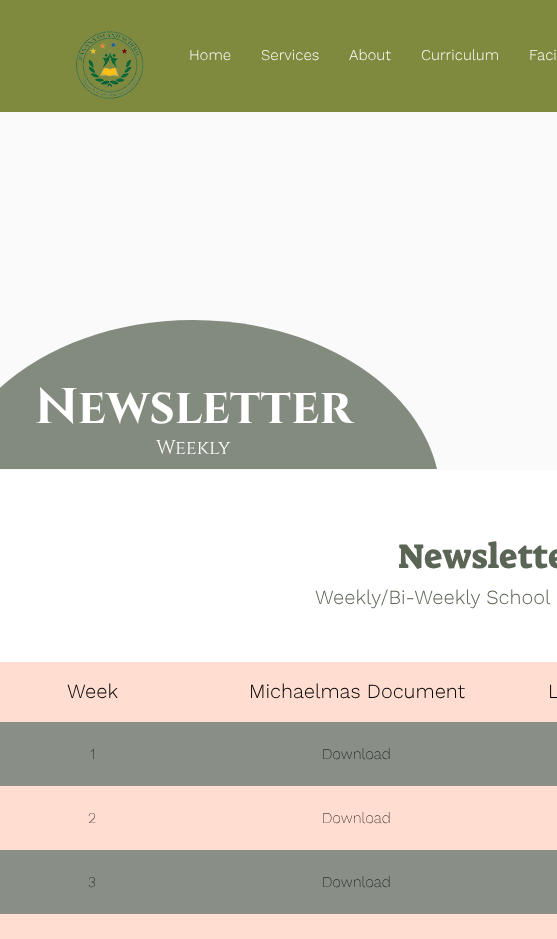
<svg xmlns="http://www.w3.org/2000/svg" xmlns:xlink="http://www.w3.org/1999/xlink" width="557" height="939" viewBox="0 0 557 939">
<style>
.cls-1{font:300 15px Work Sans;fill:#ffffff}
.cls-2{font:bold 50px Cinzel;fill:#ffffff}
.cls-3{font:20px Cinzel;fill:#ffffff}
.cls-4{font:35px Suez One;fill:#5b6555}
.cls-5{font:300 20px Work Sans;fill:#5b6555}
.cls-6{font:300 20px Work Sans;fill:#000000}
.cls-7{font:200 15px Work Sans;fill:#000000}
</style>
<rect width="100%" height="100%" fill="#ffffff"/>
<rect fill="#808a3f" x="0" y="0" width="557" height="112"/>
<image xlink:href="image0.png" x="76" y="31" width="68" height="68"/>
<rect fill="#fafafa" x="0" y="112" width="557" height="358"/>
<path fill="#838a7e" d="M437 469C417 384 315 320 193 320C72 320-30 384-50 469Z"/>
<rect fill="#ffddd1" x="0" y="662" width="557" height="277"/>
<rect fill="#898f86" x="0" y="722" width="557" height="64"/>
<rect fill="#898f86" x="0" y="850" width="557" height="64"/>
<text class="cls-1" x="189" y="60">Home</text>
<text class="cls-1" x="261" y="60">Services</text>
<text class="cls-1" x="349" y="60">About</text>
<text class="cls-1" x="421" y="60">Curriculum</text>
<text class="cls-1" x="529" y="60">Faci</text>
<text class="cls-2" x="35" y="423">Newsletter</text>
<text class="cls-3" x="156" y="454">Weekly</text>
<text class="cls-4" x="398" y="568">Newslette</text>
<text class="cls-5" x="315" y="604">Weekly/Bi-Weekly School</text>
<text class="cls-6" x="67" y="698">Week</text>
<text class="cls-6" x="249" y="698">Michaelmas Document</text>
<text class="cls-6" x="548" y="698">L</text>
<text class="cls-7" x="90" y="759">1</text>
<text class="cls-7" x="322" y="759">Download</text>
<text class="cls-7" x="88" y="823">2</text>
<text class="cls-7" x="322" y="823">Download</text>
<text class="cls-7" x="88" y="887">3</text>
<text class="cls-7" x="322" y="887">Download</text>
</svg>
